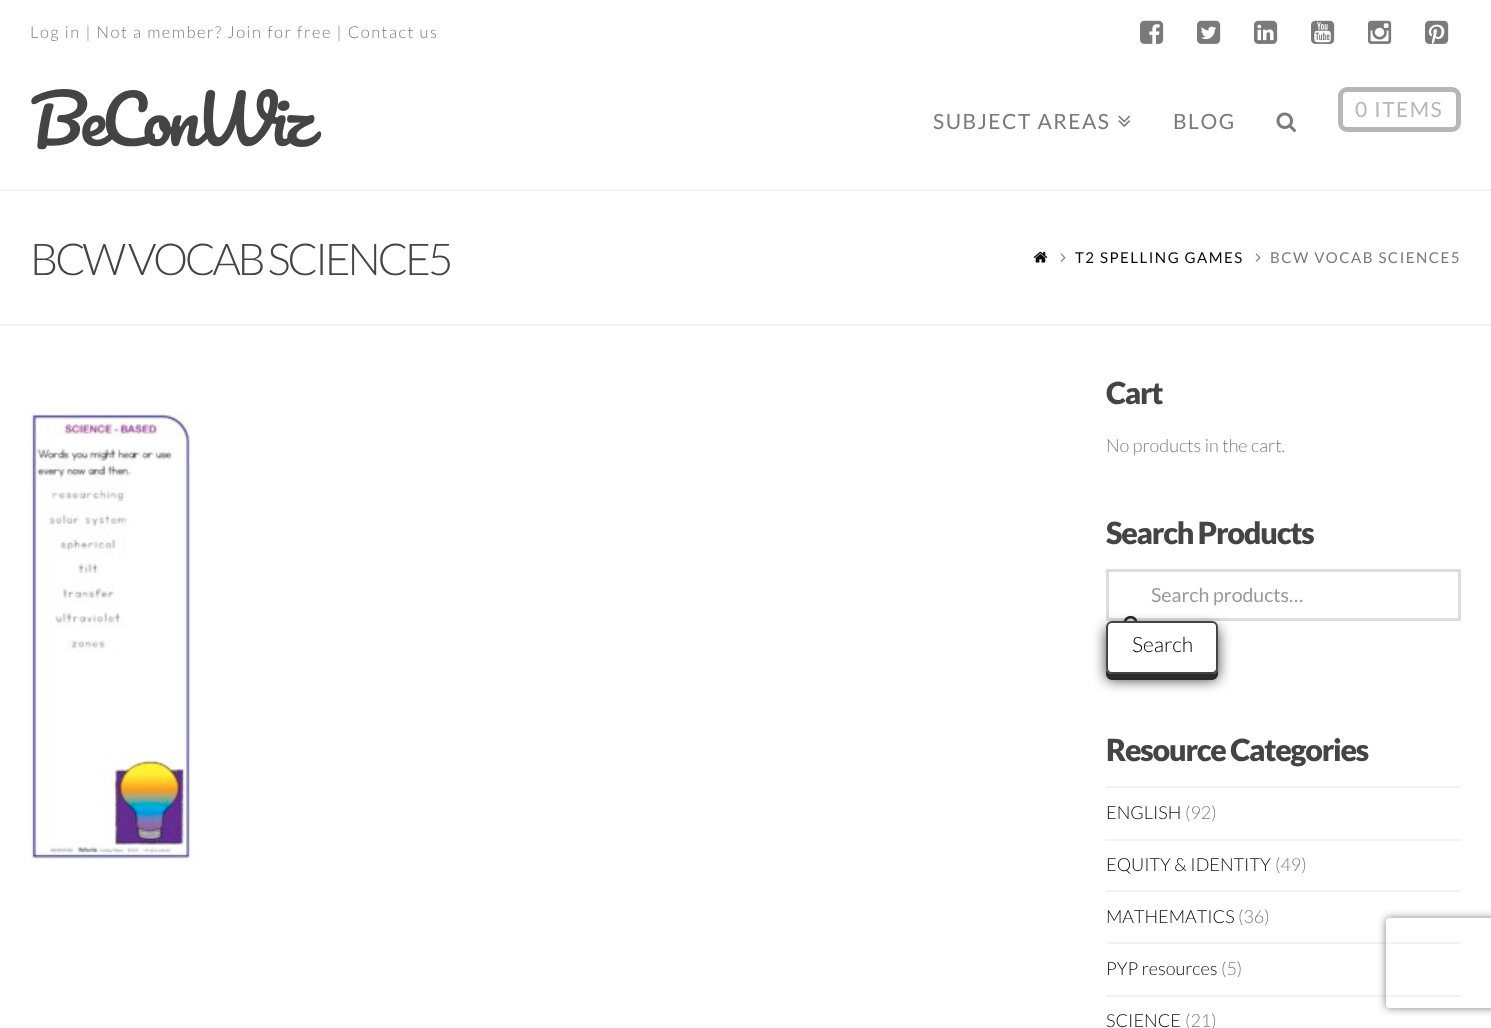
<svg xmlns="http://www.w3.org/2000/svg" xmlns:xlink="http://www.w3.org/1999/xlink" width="1491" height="1028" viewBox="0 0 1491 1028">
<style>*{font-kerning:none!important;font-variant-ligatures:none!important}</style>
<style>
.cls-1{font:300 16.5px Lato;letter-spacing:1.5px;fill:#7a7a7a}
.cls-2{font:66px Pacifico;letter-spacing:-4.5px;fill:#444444}
.cls-3{font:21px Lato;letter-spacing:1.5px;fill:#b7b7b7}
.cls-4{font:21px Lato;letter-spacing:1.5px;fill:#7a7a7a}
.cls-5{font:300 44px Lato;letter-spacing:-3.3px;fill:#444444}
.cls-6{font:15px Lato;letter-spacing:1.5px;fill:#0a0a0a}
.cls-7{font:15px Lato;letter-spacing:1.5px;fill:#7a7a7a}
.cls-8{font:900 30.5px Lato;letter-spacing:-1.25px;fill:#444444}
.cls-9{font:300 18px Lato;fill:#7a7a7a}
.cls-10{font:19.5px Lato;fill:#999999}
.cls-11{font:300 21px Lato;fill:#000000}
.cls-12{font:300 18px Lato;fill:#0a0a0a}
</style>
<defs>
<clipPath id="clip1"><path d="M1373 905H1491V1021H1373ZM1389 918H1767C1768.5 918 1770 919.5 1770 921V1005C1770 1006.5 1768.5 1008 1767 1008H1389C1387.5 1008 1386 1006.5 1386 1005V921C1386 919.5 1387.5 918 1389 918Z" clip-rule="evenodd"/></clipPath>
</defs>
<rect width="100%" height="100%" fill="#ffffff"/>
<image xlink:href="image0.png" x="1140" y="20" width="24" height="24"/>
<image xlink:href="image1.png" x="1197" y="20" width="24" height="24"/>
<image xlink:href="image2.png" x="1254" y="20" width="24" height="24"/>
<image xlink:href="image3.png" x="1311" y="20" width="24" height="24"/>
<image xlink:href="image4.png" x="1368" y="20" width="24" height="24"/>
<image xlink:href="image5.png" x="1425" y="20" width="24" height="24"/>
<rect fill="none" stroke="#b7b7b7" stroke-width="5" x="1340.5" y="89.5" width="118" height="40" rx="6.5"/>
<image xlink:href="image6.png" x="1118" y="115" width="12" height="12"/>
<image xlink:href="image7.png" x="1276" y="112" width="20" height="20"/>
<rect fill="#f2f2f2" x="0" y="189" width="1491" height="2"/>
<rect fill="#f2f2f2" x="0" y="324" width="1491" height="2"/>
<image xlink:href="image8.png" x="1033" y="251" width="15" height="12"/>
<image xlink:href="image9.png" x="1060" y="253" width="6" height="9"/>
<image xlink:href="image9.png" x="1255" y="253" width="6" height="9"/>
<image xlink:href="image10.png" x="30" y="412" width="164" height="451"/>
<rect fill="none" stroke="#dddddd" stroke-width="3" x="1107.5" y="570.5" width="352" height="49"/>
<image xlink:href="image11.png" x="1123" y="615" width="15" height="6"/>
<rect fill="#000000" fill-opacity="0.75" filter="blur(7px)" x="1106" y="627" width="112" height="53" rx="6"/>
<path fill="#2a2a2a" d="M1106 670V674C1106 677 1109 680 1112 680H1212C1215 680 1218 677 1218 674V668C1218 671 1216 674 1213 674H1111C1109 674 1107 672 1106 670Z"/>
<rect fill="#ffffff" stroke="#444444" stroke-width="2" x="1107" y="622" width="110" height="51" rx="5"/>
<rect fill="#f2f2f2" x="1106" y="786" width="355" height="2"/>
<rect fill="#f2f2f2" x="1106" y="839" width="355" height="2"/>
<rect fill="#f2f2f2" x="1106" y="890" width="355" height="2"/>
<rect fill="#f2f2f2" x="1106" y="942" width="355" height="2"/>
<rect fill="#f2f2f2" x="1106" y="995" width="355" height="2"/>
<g clip-path="url(#clip1)">
<rect fill="#808080" filter="blur(4px)" x="1386" y="918" width="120" height="90" rx="3"/>
</g>
<text class="cls-1" x="30" y="38">Log in | Not a member? Join for free | Contact us</text>
<text class="cls-2" x="30" y="146">BeConWiz</text>
<text class="cls-3" x="1355" y="117">0 ITEMS</text>
<text class="cls-4" x="933" y="129">SUBJECT AREAS</text>
<text class="cls-4" x="1173" y="129">BLOG</text>
<text class="cls-5" x="30" y="275">BCW VOCAB SCIENCE5</text>
<text class="cls-6" x="1075" y="263">T2 SPELLING GAMES</text>
<text class="cls-7" x="1270" y="263">BCW VOCAB SCIENCE5</text>
<text class="cls-8" x="1106" y="404">Cart</text>
<text class="cls-9" x="1106" y="452">No products in the cart.</text>
<text class="cls-8" x="1106" y="544">Search Products</text>
<text class="cls-10" x="1151" y="602">Search products…</text>
<text class="cls-11" x="1132" y="652">Search</text>
<text class="cls-8" x="1106" y="761">Resource Categories</text>
<text class="cls-12" x="1106" y="819">ENGLISH</text>
<text class="cls-9" x="1185" y="819">(92)</text>
<text class="cls-12" x="1106" y="871">EQUITY &amp; IDENTITY</text>
<text class="cls-9" x="1275" y="871">(49)</text>
<text class="cls-12" x="1106" y="923">MATHEMATICS</text>
<text class="cls-9" x="1238" y="923">(36)</text>
<text class="cls-12" x="1106" y="975">PYP resources</text>
<text class="cls-9" x="1221" y="975">(5)</text>
<text class="cls-12" x="1106" y="1027">SCIENCE</text>
<text class="cls-9" x="1185" y="1027">(21)</text>
</svg>
